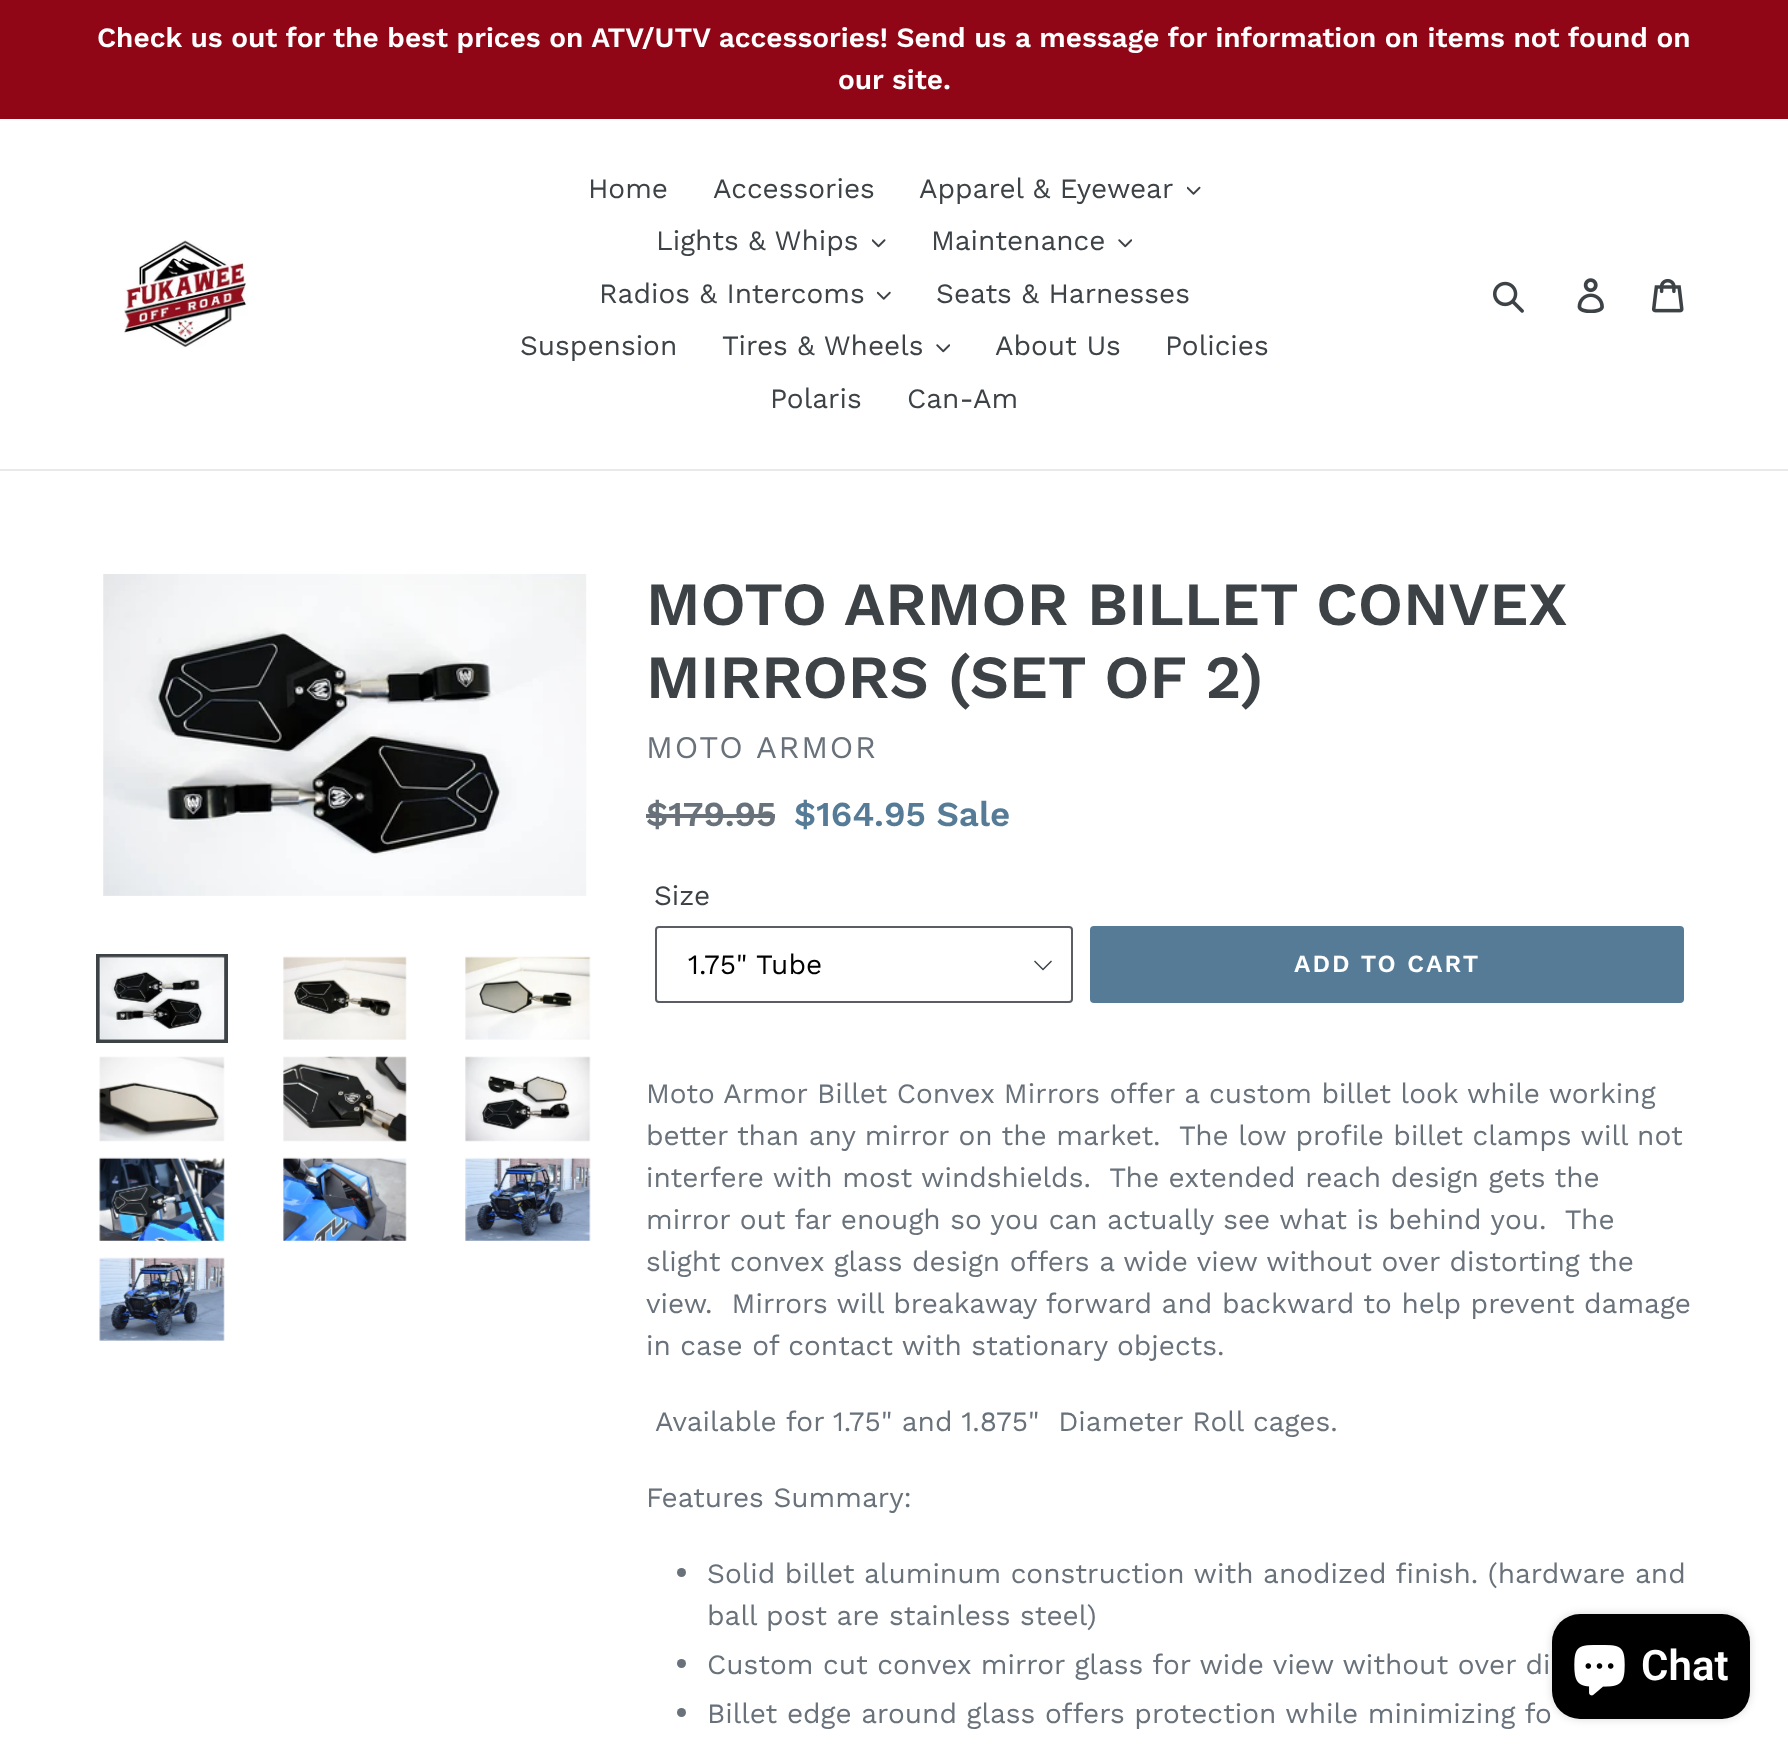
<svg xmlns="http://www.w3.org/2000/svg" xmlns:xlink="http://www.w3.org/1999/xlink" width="1788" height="1754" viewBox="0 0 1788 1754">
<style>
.cls-1{font:600 28px Work Sans;fill:#ffffff}
.cls-2{font:28px Work Sans;fill:#3d4246}
.cls-3{font:600 61.25px Work Sans;fill:#3d4246}
.cls-4{font:31.5px Work Sans;letter-spacing:1.75px;fill:#69727b}
.cls-5{font:600 35px Work Sans;fill:#69727b}
.cls-6{font:600 35px Work Sans;fill:#557b97}
.cls-7{font:28px Work Sans;fill:#000000}
.cls-8{font:600 24.5px Work Sans;letter-spacing:2px;fill:#ffffff}
.cls-9{font:28px Work Sans;fill:#69727b}
.cls-10{font:600 42px Roboto;fill:#ffffff}
</style>
<rect width="100%" height="100%" fill="#ffffff"/>
<rect fill="#900616" x="0" y="0" width="1788" height="119"/>
<rect fill="#e8e9eb" x="0" y="469" width="1788" height="2"/>
<image xlink:href="image0.png" x="124" y="240" width="124" height="108"/>
<image xlink:href="image1.png" x="1187" y="186" width="14" height="9"/>
<image xlink:href="image2.png" x="872" y="239" width="14" height="9"/>
<image xlink:href="image3.png" x="1118" y="239" width="14" height="9"/>
<image xlink:href="image4.png" x="877" y="291" width="14" height="9"/>
<image xlink:href="image3.png" x="936" y="344" width="14" height="9"/>
<image xlink:href="image5.png" x="1493" y="281" width="31" height="32"/>
<image xlink:href="image6.png" x="1577" y="278" width="27" height="35"/>
<image xlink:href="image7.png" x="1652" y="278" width="32" height="35"/>
<image xlink:href="image8.png" x="103" y="574" width="484" height="322"/>
<rect fill="none" stroke="#3d4246" stroke-width="4" x="98" y="956" width="128" height="85"/>
<image xlink:href="image9.png" x="99" y="956" width="126" height="84"/>
<image xlink:href="image10.png" x="283" y="956" width="124" height="84"/>
<image xlink:href="image11.png" x="465" y="956" width="126" height="84"/>
<image xlink:href="image12.png" x="99" y="1056" width="126" height="86"/>
<image xlink:href="image13.png" x="283" y="1056" width="124" height="86"/>
<image xlink:href="image14.png" x="465" y="1056" width="126" height="86"/>
<image xlink:href="image15.png" x="99" y="1157" width="126" height="84"/>
<image xlink:href="image16.png" x="283" y="1157" width="124" height="84"/>
<image xlink:href="image17.png" x="465" y="1157" width="126" height="84"/>
<image xlink:href="image18.png" x="99" y="1257" width="126" height="84"/>
<rect fill="#69727b" x="646" y="814" width="129" height="4"/>
<path fill="#3d4246" d="M1043 970.5L1034 961.5L1035 960.5L1043 968.5L1051 960.5L1052 961.5Z"/>
<rect fill="none" stroke="#5a5e62" stroke-width="2" x="656" y="927" width="416" height="75" rx="3"/>
<rect fill="#557b97" x="1090" y="926" width="594" height="77" rx="4"/>
<circle fill="#69727b" cx="681.5" cy="1572.5" r="4.5"/>
<circle fill="#69727b" cx="681.5" cy="1663.5" r="4.5"/>
<circle fill="#69727b" cx="681.5" cy="1712.5" r="4.5"/>
<rect fill="#000000" fill-opacity="0.15" filter="blur(4.5px)" x="1552" y="1614" width="198" height="105" rx="28"/>
<rect fill="#000000" x="1552" y="1614" width="198" height="105" rx="28"/>
<image xlink:href="image19.png" x="1574" y="1645" width="51" height="51"/>
<text class="cls-1" x="97" y="47">Check us out for the best prices on ATV/UTV accessories! Send us a message for information on items not found on</text>
<text class="cls-1" x="838" y="89">our site.</text>
<text class="cls-2" x="588" y="198">Home</text>
<text class="cls-2" x="713" y="198">Accessories</text>
<text class="cls-2" x="919" y="198">Apparel &amp; Eyewear</text>
<text class="cls-2" x="656" y="250">Lights &amp; Whips</text>
<text class="cls-2" x="931" y="250">Maintenance</text>
<text class="cls-2" x="599" y="303">Radios &amp; Intercoms</text>
<text class="cls-2" x="936" y="303">Seats &amp; Harnesses</text>
<text class="cls-2" x="520" y="355">Suspension</text>
<text class="cls-2" x="722" y="355">Tires &amp; Wheels</text>
<text class="cls-2" x="995" y="355">About Us</text>
<text class="cls-2" x="1165" y="355">Policies</text>
<text class="cls-2" x="770" y="408">Polaris</text>
<text class="cls-2" x="907" y="408">Can-Am</text>
<text class="cls-3"><tspan x="646" y="625">MOTO ARMOR BILLET CONVEX</tspan><tspan x="646" y="698">MIRRORS (SET OF 2)</tspan></text>
<text class="cls-4" x="646" y="758">MOTO ARMOR</text>
<text class="cls-5" x="646" y="826">$179.95</text>
<text class="cls-6" x="794" y="826">$164.95 Sale</text>
<text class="cls-2" x="654" y="905">Size</text>
<text class="cls-7" x="688" y="974">1.75" Tube</text>
<text class="cls-8" x="1294" y="972">ADD TO CART</text>
<text class="cls-9" xml:space="preserve"><tspan x="646" y="1103">Moto Armor Billet Convex Mirrors offer a custom billet look while working</tspan><tspan x="646" y="1145">better than any mirror on the market.  The low profile billet clamps will not</tspan><tspan x="646" y="1187">interfere with most windshields.  The extended reach design gets the</tspan><tspan x="646" y="1229">mirror out far enough so you can actually see what is behind you.  The</tspan><tspan x="646" y="1271">slight convex glass design offers a wide view without over distorting the</tspan><tspan x="646" y="1313">view.  Mirrors will breakaway forward and backward to help prevent damage</tspan><tspan x="646" y="1355">in case of contact with stationary objects.</tspan></text>
<text class="cls-9" xml:space="preserve" x="655" y="1431">Available for 1.75" and 1.875"  Diameter Roll cages.</text>
<text class="cls-9" x="646" y="1507">Features Summary:</text>
<text class="cls-9"><tspan x="707" y="1583">Solid billet aluminum construction with anodized finish. (hardware and</tspan><tspan x="707" y="1625">ball post are stainless steel)</tspan><tspan x="707" y="1674">Custom cut convex mirror glass for wide view without over di</tspan><tspan x="707" y="1723">Billet edge around glass offers protection while minimizing fo</tspan></text>
<text class="cls-10" x="1641" y="1680">Chat</text>
</svg>
